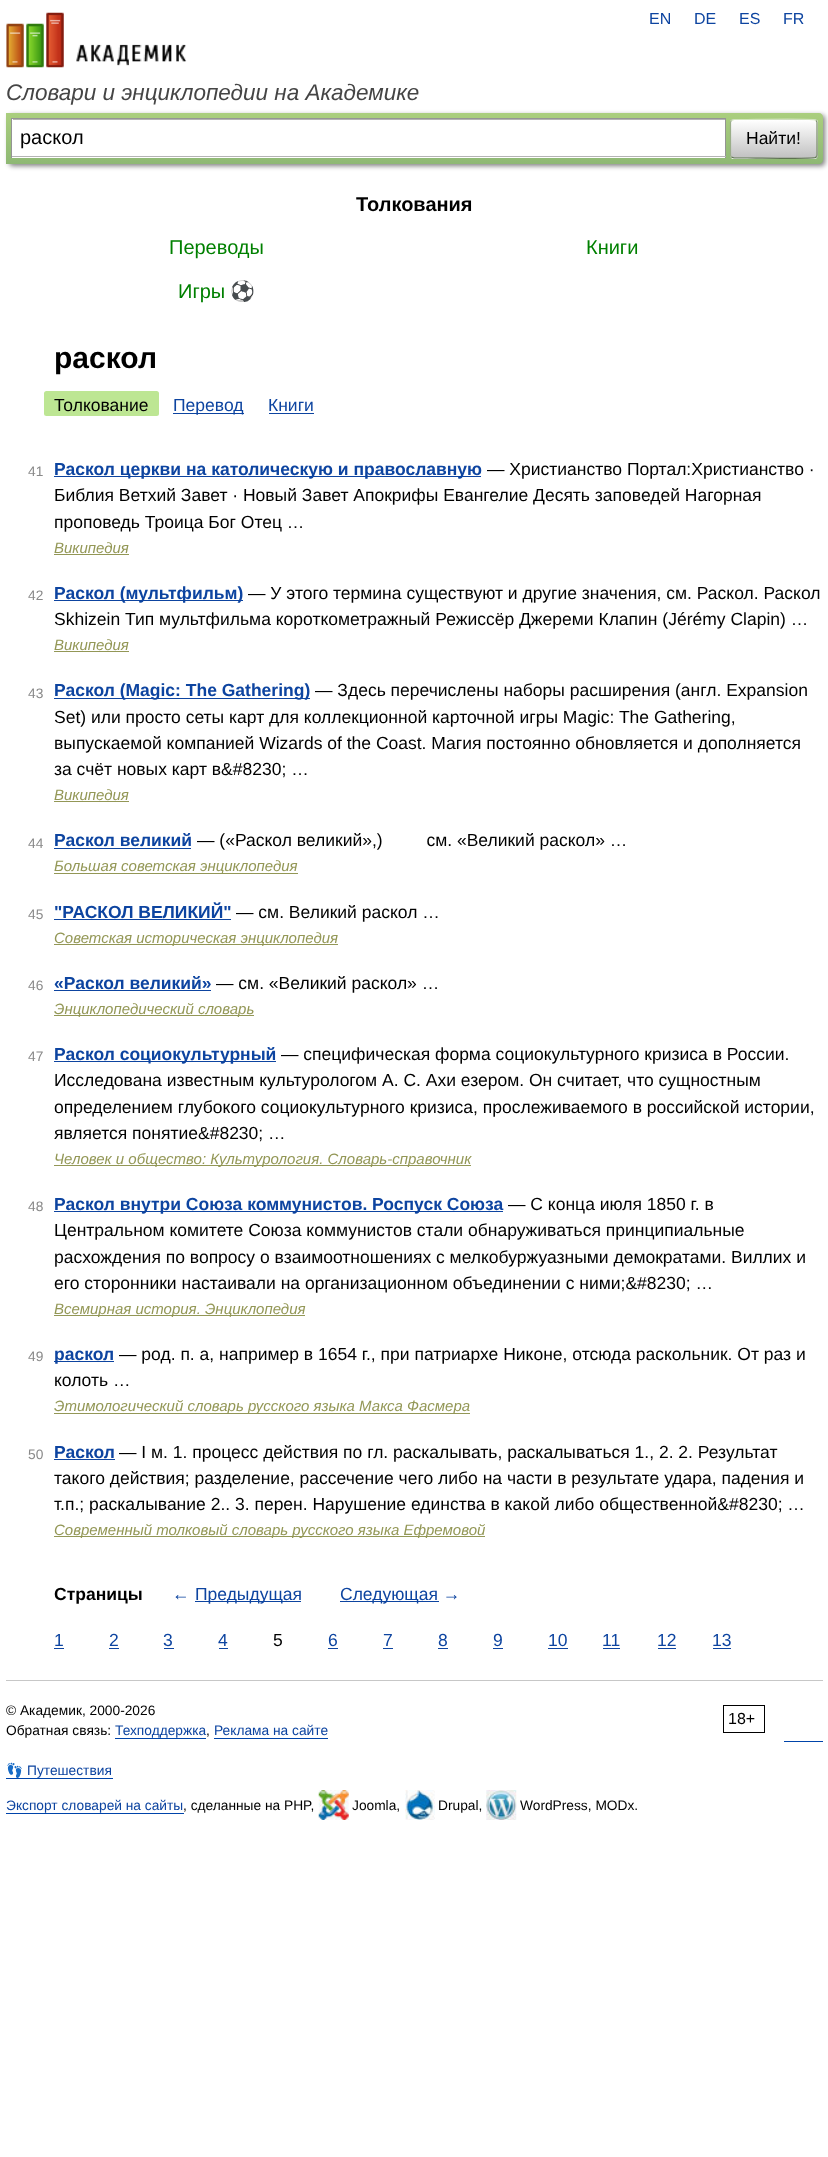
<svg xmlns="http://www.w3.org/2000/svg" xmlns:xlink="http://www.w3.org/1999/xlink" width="828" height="2157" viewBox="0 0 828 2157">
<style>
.cls-1{font:16px Liberation Sans;fill:#0d44a0}
.cls-2{font:italic 22.5px Liberation Sans;fill:#454545}
.cls-3{font:20px Liberation Sans;fill:#000000}
.cls-4{font:17.5px Liberation Sans;fill:#000000}
.cls-5{font:bold 20px Liberation Sans;fill:#000000}
.cls-6{font:20px Liberation Sans;fill:#008000}
.cls-7{font:20px Noto Color Emoji;fill:#008000}
.cls-8{font:bold 30px Liberation Sans;fill:#000000}
.cls-9{font:17.5px Liberation Sans;fill:#0d44a0}
.cls-10{font:13.75px Liberation Sans;fill:#898989}
.cls-11{font:bold 17.5px Liberation Sans;fill:#0d44a0}
.cls-12{font:italic 15px Liberation Sans;fill:#939756}
.cls-13{font:bold 17.5px Liberation Sans;fill:#000000}
.cls-14{font:13.75px Liberation Sans;fill:#000000}
.cls-15{font:16px Liberation Sans;fill:#000000}
.cls-16{font:13.75px Liberation Sans;fill:#0d44a0}
.cls-17{font:13.75px Noto Color Emoji;fill:#0d44a0}
</style>
<defs>
<linearGradient id="g1" gradientUnits="userSpaceOnUse" x1="414" y1="112" x2="414" y2="164"><stop offset="0" stop-color="#abcf7e"/><stop offset="1" stop-color="#8eb874"/></linearGradient>
<clipPath id="clip1"><rect x="730" y="119" width="88" height="40" rx="4"/></clipPath>
<linearGradient id="g2" gradientUnits="userSpaceOnUse" x1="774" y1="83" x2="774" y2="120"><stop offset="0" stop-color="#ffffff"/><stop offset="1" stop-color="#c1c1c1"/></linearGradient>
<linearGradient id="g3" gradientUnits="userSpaceOnUse" x1="774" y1="120" x2="774" y2="158"><stop offset="0" stop-color="#ffffff"/><stop offset="1" stop-color="#c1c1c1"/></linearGradient>
<linearGradient id="g4" gradientUnits="userSpaceOnUse" x1="774" y1="158" x2="774" y2="195"><stop offset="0" stop-color="#ffffff"/><stop offset="1" stop-color="#c1c1c1"/></linearGradient>
</defs>
<rect width="100%" height="100%" fill="#ffffff"/>
<image xlink:href="image0.png" x="6" y="12" width="181" height="56"/>
<rect fill="#000000" fill-opacity="0.5" filter="blur(2.5px)" x="9" y="115" width="816" height="51" rx="4"/>
<path fill="url(#g1)" d="M6 113H819C821 113 823 115 823 117V160C823 162 821 164 819 164H6Z"/>
<rect fill="#ffffff" x="12" y="119" width="713" height="39"/>
<rect fill="#b3b3b3" x="13" y="119" width="712" height="1"/>
<rect fill="#949494" x="11" y="118" width="715" height="1"/>
<rect fill="#949494" x="725" y="118" width="1" height="40"/>
<rect fill="#b4b4b4" x="11" y="156" width="715" height="1"/>
<rect fill="#949494" x="11" y="118" width="1" height="40"/>
<g clip-path="url(#clip1)">
<rect fill="url(#g2)" x="730" y="119" width="88" height="1"/>
<rect fill="url(#g3)" x="730" y="120" width="88" height="38"/>
<rect fill="url(#g4)" x="730" y="158" width="88" height="1"/>
</g>
<path fill="none" stroke="#d1e4bc" stroke-width="1.2" d="M731.5 120.5L734 119.5H747C754.5 119.5 813.5 118.5 815.5 120L816 120.5"/>
<path fill="none" stroke="#7a8e69" stroke-width="1.2" d="M816 120.5C816.5 121 817 121.5 817 122.5V155C817 156 816.5 156.5 816 157"/>
<path fill="none" stroke="#5d7250" stroke-width="1.2" d="M816 157L815.5 157.5C813.5 159 754.5 158 747 158H734L731.5 157"/>
<path fill="none" stroke="#9aae89" stroke-width="1.2" d="M731.5 157C731 156.5 730.5 156 730.5 155V122.5C730.5 121.5 731 121 731.5 120.5"/>
<rect fill="#bde693" x="44" y="391" width="115" height="25" rx="2.5"/>
<rect fill="#0d44a0" x="173" y="413" width="71" height="1"/>
<rect fill="#0d44a0" x="269" y="413" width="45" height="1"/>
<rect fill="#0d44a0" x="54" y="476" width="427" height="1"/>
<rect fill="#939756" x="54" y="554" width="75" height="1"/>
<rect fill="#0d44a0" x="54" y="600" width="189" height="1"/>
<rect fill="#939756" x="54" y="651" width="75" height="1"/>
<rect fill="#0d44a0" x="54" y="698" width="256" height="1"/>
<rect fill="#939756" x="54" y="801" width="75" height="1"/>
<rect fill="#0d44a0" x="54" y="848" width="137" height="1"/>
<rect fill="#939756" x="54" y="873" width="244" height="1"/>
<rect fill="#0d44a0" x="54" y="919" width="177" height="1"/>
<rect fill="#939756" x="54" y="944" width="284" height="1"/>
<rect fill="#0d44a0" x="54" y="990" width="157" height="1"/>
<rect fill="#939756" x="54" y="1015" width="200" height="1"/>
<rect fill="#0d44a0" x="54" y="1061" width="222" height="1"/>
<rect fill="#939756" x="54" y="1165" width="417" height="1"/>
<rect fill="#0d44a0" x="54" y="1211" width="449" height="1"/>
<rect fill="#939756" x="54" y="1315" width="251" height="1"/>
<rect fill="#0d44a0" x="54" y="1361" width="60" height="1"/>
<rect fill="#939756" x="54" y="1413" width="416" height="1"/>
<rect fill="#0d44a0" x="54" y="1459" width="61" height="1"/>
<rect fill="#939756" x="54" y="1536" width="431" height="1"/>
<rect fill="#0d44a0" x="195" y="1601" width="106" height="1"/>
<rect fill="#0d44a0" x="340" y="1601" width="99" height="1"/>
<rect fill="#0d44a0" x="54" y="1648" width="10" height="1"/>
<rect fill="#0d44a0" x="109" y="1648" width="10" height="1"/>
<rect fill="#0d44a0" x="164" y="1648" width="10" height="1"/>
<rect fill="#0d44a0" x="219" y="1648" width="9" height="1"/>
<rect fill="#0d44a0" x="328" y="1648" width="10" height="1"/>
<rect fill="#0d44a0" x="383" y="1648" width="10" height="1"/>
<rect fill="#0d44a0" x="438" y="1648" width="10" height="1"/>
<rect fill="#0d44a0" x="493" y="1648" width="10" height="1"/>
<rect fill="#0d44a0" x="548" y="1648" width="20" height="1"/>
<rect fill="#0d44a0" x="603" y="1648" width="17" height="1"/>
<rect fill="#0d44a0" x="658" y="1648" width="18" height="1"/>
<rect fill="#0d44a0" x="713" y="1648" width="18" height="1"/>
<rect fill="#c7c7c7" x="6" y="1680" width="817" height="1"/>
<rect fill="none" stroke="#000000" x="723.5" y="1705.5" width="41" height="27"/>
<rect fill="#0044aa" x="115" y="1738" width="91" height="1"/>
<rect fill="#0044aa" x="214" y="1738" width="114" height="1"/>
<rect fill="#0044aa" x="784" y="1741" width="39" height="1"/>
<rect fill="#0044aa" x="6" y="1778" width="107" height="1"/>
<rect fill="#0044aa" x="6" y="1813" width="178" height="1"/>
<image xlink:href="image1.png" x="318" y="1790" width="31" height="30"/>
<image xlink:href="image2.png" x="405" y="1790" width="30" height="30"/>
<image xlink:href="image3.png" x="486" y="1790" width="31" height="30"/>
<text class="cls-1" x="649" y="24">EN</text>
<text class="cls-1" x="694" y="24">DE</text>
<text class="cls-1" x="739" y="24">ES</text>
<text class="cls-1" x="783" y="24">FR</text>
<text class="cls-2" x="6" y="100">Словари и энциклопедии на Академике</text>
<text class="cls-3" x="20" y="144">раскол</text>
<text class="cls-4" x="746" y="144">Найти!</text>
<text class="cls-5" x="356" y="211">Толкования</text>
<text class="cls-6" x="169" y="254">Переводы</text>
<text class="cls-6" x="586" y="254">Книги</text>
<text class="cls-6" x="178" y="298">Игры</text>
<text class="cls-7" x="230" y="298">⚽</text>
<text class="cls-8" x="54" y="368">раскол</text>
<text class="cls-4" x="54" y="411">Толкование</text>
<text class="cls-9" x="173" y="411">Перевод</text>
<text class="cls-9" x="268" y="411">Книги</text>
<text class="cls-10" x="28" y="476">41</text>
<text class="cls-11" x="54" y="475">Раскол церкви на католическую и православную</text>
<text class="cls-4" x="487" y="475">— Христианство Портал:Христианство · </text>
<text class="cls-4"><tspan x="54" y="501">Библия Ветхий Завет · Новый Завет Апокрифы Евангелие Десять заповедей Нагорная</tspan><tspan x="54" y="528">проповедь Троица Бог Отец …</tspan></text>
<text class="cls-12" x="54" y="553">Википедия</text>
<text class="cls-10" x="28" y="600">42</text>
<text class="cls-11" x="54" y="599">Раскол (мультфильм)</text>
<text class="cls-4" x="248" y="599">— У этого термина существуют и другие значения, см. Раскол. Раскол</text>
<text class="cls-4" x="54" y="625">Skhizein Тип мультфильма короткометражный Режиссёр Джереми Клапин (Jérémy Clapin) …</text>
<text class="cls-12" x="54" y="650">Википедия</text>
<text class="cls-10" x="28" y="698">43</text>
<text class="cls-11" x="54" y="696">Раскол (Magic: The Gathering)</text>
<text class="cls-4" x="315" y="696">— Здесь перечислены наборы расширения (англ. Expansion</text>
<text class="cls-4"><tspan x="54" y="723">Set) или просто сеты карт для коллекционной карточной игры Magic: The Gathering,</tspan><tspan x="54" y="749">выпускаемой компанией Wizards of the Coast. Магия постоянно обновляется и дополняется</tspan><tspan x="54" y="775">за счёт новых карт в&amp;#8230; …</tspan></text>
<text class="cls-12" x="54" y="800">Википедия</text>
<text class="cls-10" x="28" y="848">44</text>
<text class="cls-11" x="54" y="846">Раскол великий</text>
<text class="cls-4" xml:space="preserve" x="197" y="846">— («Раскол великий»,)         см. «Великий раскол» …</text>
<text class="cls-12" x="54" y="871">Большая советская энциклопедия</text>
<text class="cls-10" x="28" y="919">45</text>
<text class="cls-11" x="54" y="918">"РАСКОЛ ВЕЛИКИЙ"</text>
<text class="cls-4" x="236" y="918">— см. Великий раскол …</text>
<text class="cls-12" x="54" y="943">Советская историческая энциклопедия</text>
<text class="cls-10" x="28" y="990">46</text>
<text class="cls-11" x="54" y="989">«Раскол великий»</text>
<text class="cls-4" x="216" y="989">— см. «Великий раскол» …</text>
<text class="cls-12" x="54" y="1014">Энциклопедический словарь</text>
<text class="cls-10" x="28" y="1061">47</text>
<text class="cls-11" x="54" y="1060">Раскол социокультурный</text>
<text class="cls-4" x="281" y="1060">— специфическая форма социокультурного кризиса в России.</text>
<text class="cls-4"><tspan x="54" y="1086">Исследована известным культурологом А. С. Ахи езером. Он считает, что сущностным</tspan><tspan x="54" y="1113">определением глубокого социокультурного кризиса, прослеживаемого в российской истории,</tspan><tspan x="54" y="1139">является понятие&amp;#8230; …</tspan></text>
<text class="cls-12" x="54" y="1164">Человек и общество: Культурология. Словарь-справочник</text>
<text class="cls-10" x="28" y="1211">48</text>
<text class="cls-11" x="54" y="1210">Раскол внутри Союза коммунистов. Роспуск Союза</text>
<text class="cls-4" x="508" y="1210">— С конца июля 1850 г. в</text>
<text class="cls-4"><tspan x="54" y="1236">Центральном комитете Союза коммунистов стали обнаруживаться принципиальные</tspan><tspan x="54" y="1263">расхождения по вопросу о взаимоотношениях с мелкобуржуазными демократами. Виллих и</tspan><tspan x="54" y="1289">его сторонники настаивали на организационном объединении с ними;&amp;#8230; …</tspan></text>
<text class="cls-12" x="54" y="1314">Всемирная история. Энциклопедия</text>
<text class="cls-10" x="28" y="1361">49</text>
<text class="cls-11" x="54" y="1360">раскол</text>
<text class="cls-4" x="119" y="1360">— род. п. а, например в 1654 г., при патриархе Никоне, отсюда раскольник. От раз и</text>
<text class="cls-4" x="54" y="1386">колоть …</text>
<text class="cls-12" x="54" y="1411">Этимологический словарь русского языка Макса Фасмера</text>
<text class="cls-10" x="28" y="1459">50</text>
<text class="cls-11" x="54" y="1458">Раскол</text>
<text class="cls-4" x="119" y="1458">— I м. 1. процесс действия по гл. раскалывать, раскалываться 1., 2. 2. Результат</text>
<text class="cls-4"><tspan x="54" y="1484">такого действия; разделение, рассечение чего либо на части в результате удара, падения и</tspan><tspan x="54" y="1510">т.п.; раскалывание 2.. 3. перен. Нарушение единства в какой либо общественной&amp;#8230; …</tspan></text>
<text class="cls-12" x="54" y="1535">Современный толковый словарь русского языка Ефремовой</text>
<text class="cls-13" x="54" y="1600">Страницы</text>
<text class="cls-9" x="172" y="1600">←</text>
<text class="cls-9" x="195" y="1600">Предыдущая</text>
<text class="cls-9" x="340" y="1600">Следующая →</text>
<text class="cls-9" x="54" y="1646">1</text>
<text class="cls-9" x="109" y="1646">2</text>
<text class="cls-9" x="163" y="1646">3</text>
<text class="cls-9" x="218" y="1646">4</text>
<text class="cls-4" x="273" y="1646">5</text>
<text class="cls-9" x="328" y="1646">6</text>
<text class="cls-9" x="383" y="1646">7</text>
<text class="cls-9" x="438" y="1646">8</text>
<text class="cls-9" x="493" y="1646">9</text>
<text class="cls-9" x="548" y="1646">10</text>
<text class="cls-9" x="602" y="1646">11</text>
<text class="cls-9" x="657" y="1646">12</text>
<text class="cls-9" x="712" y="1646">13</text>
<text class="cls-14" x="6" y="1715">© Академик, 2000-2026</text>
<text class="cls-15" x="728" y="1724">18+</text>
<text class="cls-14" x="6" y="1735">Обратная связь:</text>
<text class="cls-16" x="115" y="1735">Техподдержка</text>
<text class="cls-14" x="206" y="1735">,</text>
<text class="cls-16" x="214" y="1735">Реклама на сайте</text>
<text class="cls-17" x="6" y="1775">👣</text>
<text class="cls-16" x="27" y="1775">Путешествия</text>
<text class="cls-16" x="6" y="1810">Экспорт словарей на сайты</text>
<text class="cls-14" x="183" y="1810">, сделанные на PHP,</text>
<text class="cls-14" x="352" y="1810">Joomla,</text>
<text class="cls-14" x="438" y="1810">Drupal,</text>
<text class="cls-14" x="520" y="1810">WordPress, MODx.</text>
</svg>
